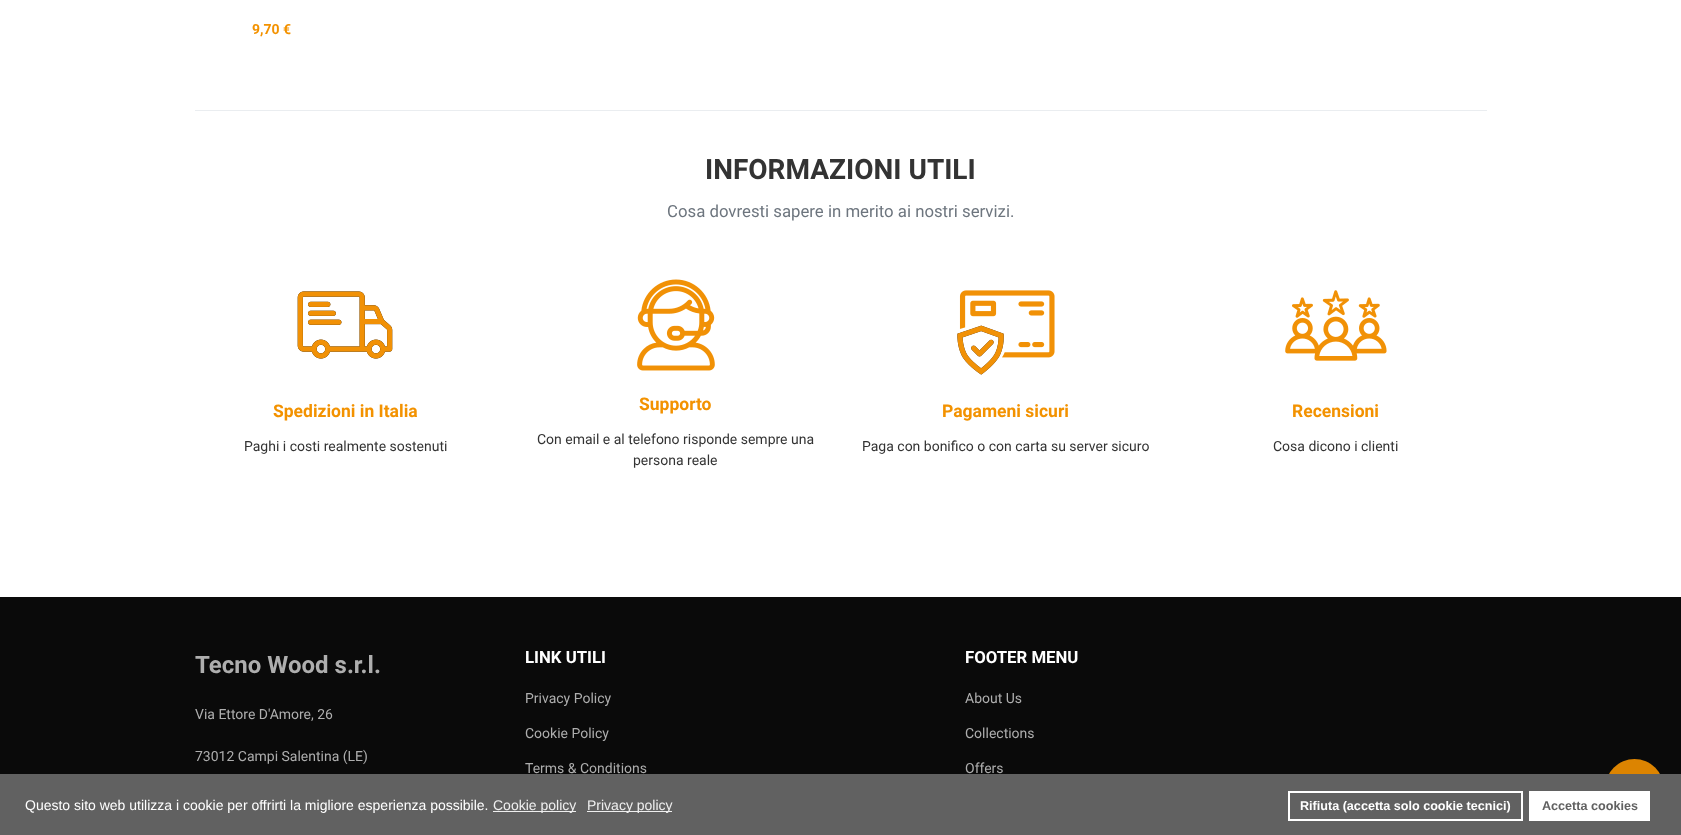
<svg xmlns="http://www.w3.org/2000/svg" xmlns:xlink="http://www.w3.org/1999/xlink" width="1681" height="835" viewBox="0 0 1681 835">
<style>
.cls-1{font:bold 14px Roboto;fill:#f39200}
.cls-2{font:bold 28px Roboto;fill:#333333}
.cls-3{font:16.8px Roboto;fill:#6d757e}
.cls-4{font:bold 17.5px Roboto;fill:#f39200}
.cls-5{font:14px Roboto;fill:#333333}
.cls-6{font:bold 24px Roboto;fill:#aeaeae}
.cls-7{font:14px Roboto;fill:#aeaeae}
.cls-8{font:bold 16.8px Roboto;fill:#ffffff}
.cls-9{font:14px Liberation Sans;fill:#ffffff}
.cls-10{font:14px Liberation Sans;fill:#efefef}
.cls-11{font:bold 12.6px Liberation Sans;fill:#ffffff}
.cls-12{font:bold 12.6px Liberation Sans;fill:#616161}
</style>
<rect width="100%" height="100%" fill="#ffffff"/>
<rect fill="#eaedf0" x="195" y="110" width="1292" height="1"/>
<image xlink:href="image0.png" x="297" y="291" width="96" height="68"/>
<image xlink:href="image1.png" x="637" y="279" width="78" height="92"/>
<image xlink:href="image2.png" x="957" y="290" width="98" height="85"/>
<image xlink:href="image3.png" x="1285" y="290" width="102" height="71"/>
<rect fill="#0a0a0a" x="0" y="597" width="1681" height="177"/>
<circle fill="#dc8401" cx="1634.5" cy="788.5" r="29.5"/>
<rect fill="#616161" x="0" y="774" width="1681" height="61"/>
<rect fill="#efefef" x="493" y="811" width="83" height="1"/>
<rect fill="#efefef" x="587" y="811" width="85" height="1"/>
<rect fill="none" stroke="#ffffff" stroke-width="2" x="1289" y="792" width="233" height="28"/>
<rect fill="#ffffff" x="1529" y="791" width="121" height="30"/>
<text class="cls-1" x="252" y="34">9,70 €</text>
<text class="cls-2" x="705" y="179">INFORMAZIONI UTILI</text>
<text class="cls-3" x="667" y="217">Cosa dovresti sapere in merito ai nostri servizi.</text>
<text class="cls-4" x="273" y="417">Spedizioni in Italia</text>
<text class="cls-5" x="244" y="451">Paghi i costi realmente sostenuti</text>
<text class="cls-4" x="639" y="410">Supporto</text>
<text class="cls-5" x="537" y="444">Con email e al telefono risponde sempre una</text>
<text class="cls-5" x="633" y="465">persona reale</text>
<text class="cls-4" x="942" y="417">Pagameni sicuri</text>
<text class="cls-5" x="862" y="451">Paga con bonifico o con carta su server sicuro</text>
<text class="cls-4" x="1292" y="417">Recensioni</text>
<text class="cls-5" x="1273" y="451">Cosa dicono i clienti</text>
<text class="cls-6" x="195" y="673">Tecno Wood s.r.l.</text>
<text class="cls-7" x="195" y="719">Via Ettore D'Amore, 26</text>
<text class="cls-7" x="195" y="761">73012 Campi Salentina (LE)</text>
<text class="cls-8" x="525" y="663">LINK UTILI</text>
<text class="cls-7" x="525" y="703">Privacy Policy</text>
<text class="cls-7" x="525" y="738">Cookie Policy</text>
<text class="cls-7" x="525" y="773">Terms &amp; Conditions</text>
<text class="cls-8" x="965" y="663">FOOTER MENU</text>
<text class="cls-7" x="965" y="703">About Us</text>
<text class="cls-7" x="965" y="738">Collections</text>
<text class="cls-7" x="965" y="773">Offers</text>
<text class="cls-9" x="25" y="810">Questo sito web utilizza i cookie per offrirti la migliore esperienza possibile.</text>
<text class="cls-10" x="493" y="810">Cookie policy</text>
<text class="cls-10" x="587" y="810">Privacy policy</text>
<text class="cls-11" x="1300" y="810">Rifiuta (accetta solo cookie tecnici)</text>
<text class="cls-12" x="1542" y="810">Accetta cookies</text>
</svg>
